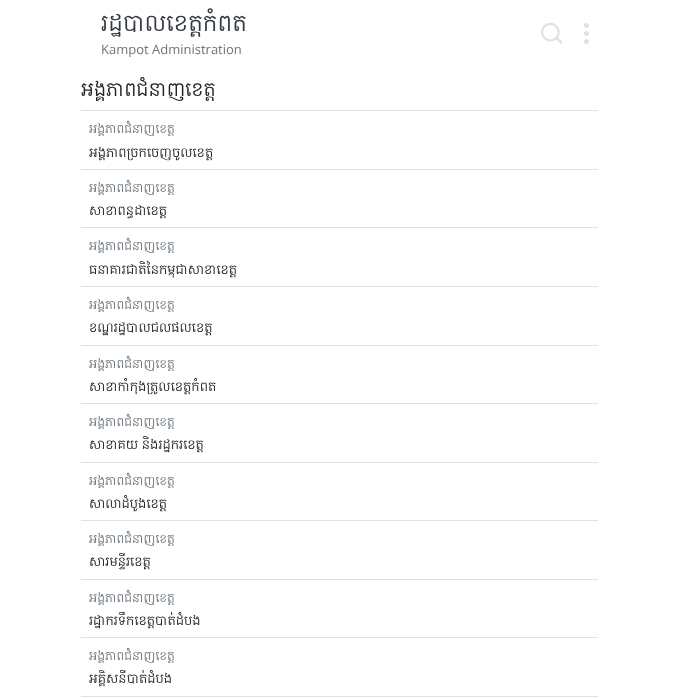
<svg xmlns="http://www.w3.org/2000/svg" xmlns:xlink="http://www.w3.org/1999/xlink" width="678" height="698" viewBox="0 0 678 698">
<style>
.cls-1{font:24px Koh Santepheap;fill:#343a40}
.cls-2{font:13px Open Sans;fill:#6c757d}
.cls-3{font:20px Koh Santepheap;fill:#212529}
.cls-4{font:12.75px Koh Santepheap;fill:#6c757d}
.cls-5{font:13.6px Koh Santepheap;fill:#212529}
</style>
<rect width="100%" height="100%" fill="#ffffff"/>
<image xlink:href="image0.png" x="541" y="22" width="22" height="22"/>
<circle fill="#dee2e6" cx="586.5" cy="25.5" r="2.5"/>
<circle fill="#dee2e6" cx="586.5" cy="33.5" r="2.5"/>
<circle fill="#dee2e6" cx="586.5" cy="41.5" r="2.5"/>
<rect fill="#dee2e6" x="81" y="110" width="517" height="1"/>
<rect fill="#dee2e6" x="81" y="169" width="517" height="1"/>
<rect fill="#dee2e6" x="81" y="227" width="517" height="1"/>
<rect fill="#dee2e6" x="81" y="286" width="517" height="1"/>
<rect fill="#dee2e6" x="81" y="345" width="517" height="1"/>
<rect fill="#dee2e6" x="81" y="403" width="517" height="1"/>
<rect fill="#dee2e6" x="81" y="462" width="517" height="1"/>
<rect fill="#dee2e6" x="81" y="520" width="517" height="1"/>
<rect fill="#dee2e6" x="81" y="579" width="517" height="1"/>
<rect fill="#dee2e6" x="81" y="637" width="517" height="1"/>
<rect fill="#dee2e6" x="81" y="696" width="517" height="1"/>
<text class="cls-1" x="101" y="31">រដ្ឋបាលខេត្តកំពត</text>
<text class="cls-2" x="101" y="54">Kampot Administration</text>
<text class="cls-3" x="81" y="96">អង្គភាពជំនាញខេត្ត</text>
<text class="cls-4" x="89" y="133">អង្គភាពជំនាញខេត្ត</text>
<text class="cls-5" x="89" y="157">អង្គភាពច្រកចេញចូលខេត្ត</text>
<text class="cls-4" x="89" y="192">អង្គភាពជំនាញខេត្ត</text>
<text class="cls-5" x="89" y="215">សាខាពន្ធដាខេត្ត</text>
<text class="cls-4" x="89" y="250">អង្គភាពជំនាញខេត្ត</text>
<text class="cls-5" x="89" y="274">ធនាគារជាតិនៃកម្ពុជាសាខាខេត្ត</text>
<text class="cls-4" x="89" y="309">អង្គភាពជំនាញខេត្ត</text>
<text class="cls-5" x="89" y="332">ខណ្ឌរដ្ឋបាលជលផលខេត្ត</text>
<text class="cls-4" x="89" y="368">អង្គភាពជំនាញខេត្ត</text>
<text class="cls-5" x="89" y="391">សាខាកាំកុងត្រូលខេត្តកំពត</text>
<text class="cls-4" x="89" y="426">អង្គភាពជំនាញខេត្ត</text>
<text class="cls-5" x="89" y="449">សាខាគយ និងរដ្ឋករខេត្ត</text>
<text class="cls-4" x="89" y="485">អង្គភាពជំនាញខេត្ត</text>
<text class="cls-5" x="89" y="508">សាលាដំបូងខេត្ត</text>
<text class="cls-4" x="89" y="543">អង្គភាពជំនាញខេត្ត</text>
<text class="cls-5" x="89" y="566">សារមន្ទីរខេត្ត</text>
<text class="cls-4" x="89" y="602">អង្គភាពជំនាញខេត្ត</text>
<text class="cls-5" x="89" y="625">រដ្ឋាករទឹកខេត្តបាត់ដំបង</text>
<text class="cls-4" x="89" y="660">អង្គភាពជំនាញខេត្ត</text>
<text class="cls-5" x="89" y="683">អគ្គិសនីបាត់ដំបង</text>
</svg>
